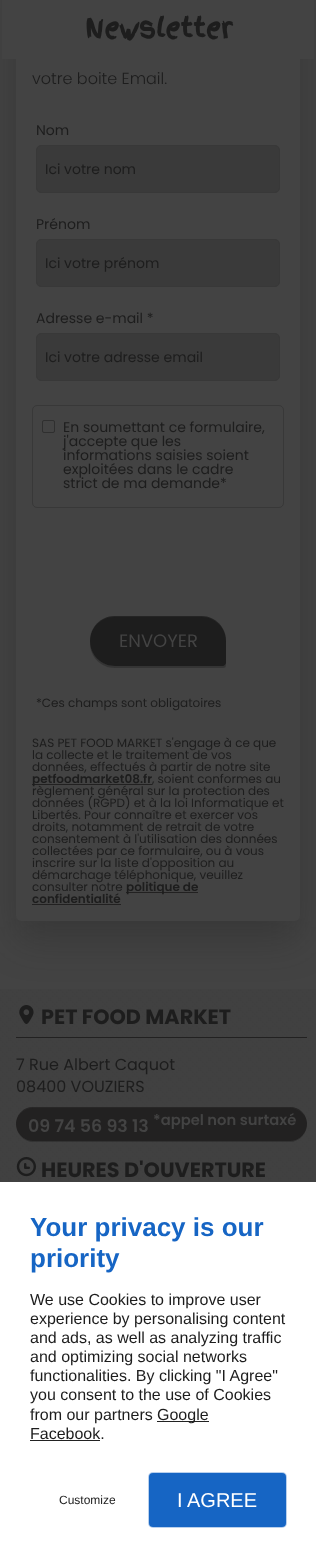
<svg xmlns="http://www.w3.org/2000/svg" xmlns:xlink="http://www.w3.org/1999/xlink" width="316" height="1557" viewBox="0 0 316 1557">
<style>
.cls-1{font:bold 26.5px Finger Paint;fill:#1d1d1d}
.cls-2{font:300 16px Poppins;fill:#1d1d1d}
.cls-3{font:14px Poppins;fill:#1d1d1d}
.cls-4{font:18px Poppins;fill:#434343}
.cls-5{font:12px Poppins;fill:#1d1d1d}
.cls-6{font:600 12px Poppins;fill:#1d1d1d}
.cls-7{font:bold 20.75px Poppins;fill:#1d1d1d}
.cls-8{font:16px Poppins;fill:#1d1d1d}
.cls-9{font:600 17.5px Poppins;fill:#434343}
.cls-10{font:600 14.75px Poppins;fill:#434343}
.cls-11{font:bold 26px Liberation Sans;fill:#1665c4}
.cls-12{font:16px Liberation Sans;fill:#1d1d1d}
.cls-13{font:12px Liberation Sans;fill:#1d1d1d}
.cls-14{font:20px Liberation Sans;fill:#ffffff}
</style>
<rect width="100%" height="100%" fill="#434343"/>
<rect fill="#1d1d1d" fill-opacity="0.3" filter="blur(19px)" x="16" y="-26" width="284" height="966" rx="5"/>
<rect fill="#434343" x="16" y="-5" width="284" height="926" rx="5"/>
<rect fill="#434343" x="2" y="0" width="312" height="59"/>
<rect fill="#3a3a3a" stroke="#383838" x="36.5" y="145.5" width="243" height="47" rx="4.5"/>
<rect fill="#3a3a3a" stroke="#383838" x="36.5" y="239.5" width="243" height="47" rx="4.5"/>
<rect fill="#3a3a3a" stroke="#383838" x="36.5" y="333.5" width="243" height="47" rx="4.5"/>
<rect fill="none" stroke="#383838" x="32.5" y="405.5" width="251" height="102" rx="4.5"/>
<rect fill="none" stroke="#2f2f2f" x="42.5" y="420.5" width="12" height="12" rx="1.5"/>
<path fill="#343434" d="M90 642V643C90 657 101 668 115 668H223C225 668 226 667 226 665V663C226 665 225 666 223 666H115C102 666 91 655 90 642Z"/>
<path fill="#1d1d1d" d="M115 616H201C215 616 226 627 226 641V663C226 664.5 224.5 666 223 666H115C101 666 90 655 90 641C90 627 101 616 115 616Z"/>
<path fill="#434343" fill-opacity="0.2" d="M115 617H201C215 617 226 628 226 642V641C226 627 215 616 201 616H115C101 616 90 627 90 641C90 628 101 617 115 617Z"/>
<rect fill="#222121" x="32" y="784" width="120" height="1"/>
<rect fill="#222121" x="126" y="892" width="72" height="1"/>
<rect fill="#222121" x="32" y="904" width="89" height="1"/>
<image xlink:href="image0.png" x="0" y="989" width="316" height="193"/>
<rect fill="#222121" x="16" y="1037" width="291" height="1"/>
<image xlink:href="image1.png" x="19" y="1005" width="15" height="19"/>
<path fill="#1d1d1d" fill-opacity="0.4" d="M16 1124C16 1134 24 1142 33 1142H290C299 1142 307 1134 307 1124C307 1134 299 1141 290 1141H33C24 1141 16 1134 16 1124Z"/>
<rect fill="#222121" x="16" y="1107" width="291" height="34" rx="17"/>
<path fill="#434343" fill-opacity="0.2" d="M33 1108H290C299 1108 307 1116 307 1125C307 1115 299 1107 290 1107H33C24 1107 16 1115 16 1125C16 1116 24 1108 33 1108Z"/>
<image xlink:href="image2.png" x="16" y="1157" width="20" height="20"/>
<rect fill="#ffffff" x="0" y="1182" width="316" height="375"/>
<rect fill="#222222" x="157" y="1421" width="52" height="1"/>
<rect fill="#222222" x="30" y="1440" width="70" height="1"/>
<rect fill="#1665c4" fill-opacity="0.3" filter="blur(0.5px)" x="148" y="1472" width="139" height="56" rx="5"/>
<rect fill="#1665c4" stroke="#1665c4" stroke-width="2" x="150" y="1474" width="135" height="52" rx="3"/>
<text class="cls-1" x="85" y="38">Newsletter</text>
<text class="cls-2" x="32" y="84">votre boite Email.</text>
<text class="cls-3" x="36" y="135">Nom</text>
<text class="cls-3" x="45" y="174">Ici votre nom</text>
<text class="cls-3" x="36" y="229">Prénom</text>
<text class="cls-3" x="45" y="268">Ici votre prénom</text>
<text class="cls-3" x="36" y="323">Adresse e-mail *</text>
<text class="cls-3" x="45" y="362">Ici votre adresse email</text>
<text class="cls-3"><tspan x="63" y="432">En soumettant ce formulaire,</tspan><tspan x="63" y="446">j'accepte que les</tspan><tspan x="63" y="460">informations saisies soient</tspan><tspan x="63" y="474">exploitées dans le cadre</tspan><tspan x="63" y="488">strict de ma demande*</tspan></text>
<text class="cls-4" x="119" y="647">ENVOYER</text>
<text class="cls-5" x="36" y="707">*Ces champs sont obligatoires</text>
<text class="cls-5"><tspan x="32" y="747">SAS PET FOOD MARKET s'engage à ce que</tspan><tspan x="32" y="759">la collecte et le traitement de vos</tspan><tspan x="32" y="771">données, effectués à partir de notre site</tspan></text>
<text class="cls-6" x="32" y="783">petfoodmarket08.fr</text>
<text class="cls-5" x="152" y="783">, soient conformes au</text>
<text class="cls-5"><tspan x="32" y="795">règlement général sur la protection des</tspan><tspan x="32" y="807">données (RGPD) et à la loi Informatique et</tspan><tspan x="32" y="819">Libertés. Pour connaître et exercer vos</tspan><tspan x="32" y="831">droits, notamment de retrait de votre</tspan><tspan x="32" y="843">consentement à l'utilisation des données</tspan><tspan x="32" y="855">collectées par ce formulaire, ou à vous</tspan><tspan x="32" y="867">inscrire sur la liste d'opposition au</tspan><tspan x="32" y="879">démarchage téléphonique, veuillez</tspan><tspan x="32" y="891">consulter notre</tspan></text>
<text class="cls-6" x="126" y="891">politique de</text>
<text class="cls-6" x="32" y="903">confidentialité</text>
<text class="cls-7" x="41" y="1024">PET FOOD MARKET</text>
<text class="cls-8"><tspan x="16" y="1070">7 Rue Albert Caquot</tspan><tspan x="16" y="1092">08400 VOUZIERS</tspan></text>
<text class="cls-9" x="28" y="1132">09 74 56 93 13</text>
<text class="cls-10" x="153" y="1125">*appel non surtaxé</text>
<text class="cls-7" x="41" y="1177">HEURES D'OUVERTURE</text>
<text class="cls-11"><tspan x="30" y="1236">Your privacy is our</tspan><tspan x="30" y="1267">priority</tspan></text>
<text class="cls-12"><tspan x="30" y="1305">We use Cookies to improve user</tspan><tspan x="30" y="1324">experience by personalising content</tspan><tspan x="30" y="1343">and ads, as well as analyzing traffic</tspan><tspan x="30" y="1362">and optimizing social networks</tspan><tspan x="30" y="1381">functionalities. By clicking "I Agree"</tspan><tspan x="30" y="1400">you consent to the use of Cookies</tspan><tspan x="30" y="1420">from our partners</tspan></text>
<text class="cls-12" x="157" y="1420">Google</text>
<text class="cls-12" x="30" y="1439">Facebook.</text>
<text class="cls-13" x="59" y="1504">Customize</text>
<text class="cls-14" x="177" y="1507">I AGREE</text>
</svg>
